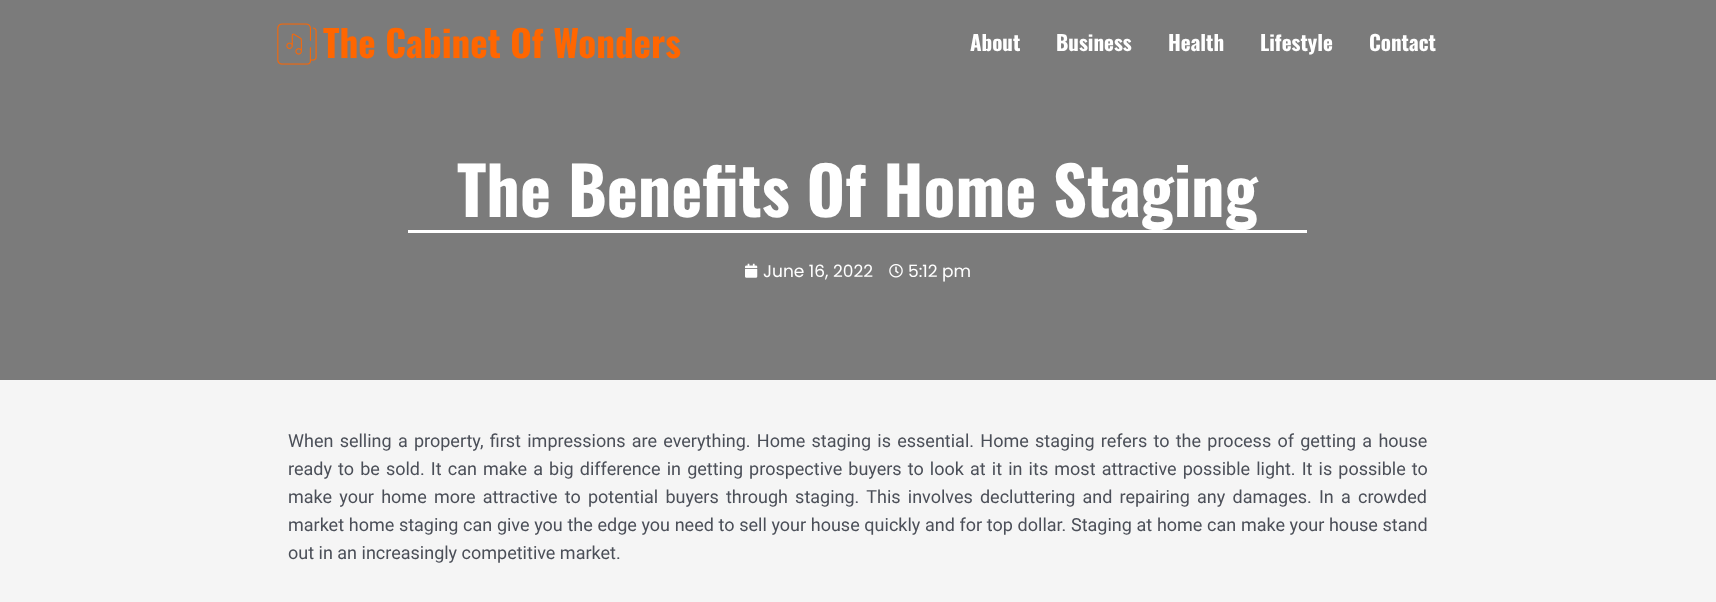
<svg xmlns="http://www.w3.org/2000/svg" xmlns:xlink="http://www.w3.org/1999/xlink" width="1716" height="602" viewBox="0 0 1716 602">
<style>
.cls-1{font:bold 37px Oswald;fill:#ff6600}
.cls-2{font:bold 21px Oswald;fill:#ffffff}
.cls-3{font:bold 66px Oswald;fill:#ffffff}
.cls-4{font:17px Poppins;fill:#ffffff}
.cls-5{font:18px Roboto;fill:#4b4f58}
</style>
<rect width="100%" height="100%" fill="#f5f5f5"/>
<rect fill="#7b7b7b" x="0" y="0" width="1716" height="380"/>
<image xlink:href="image0.png" x="277" y="23" width="40" height="42"/>
<rect fill="#ffffff" x="408" y="230" width="899" height="3"/>
<image xlink:href="image1.png" x="745" y="263" width="13" height="15"/>
<image xlink:href="image2.png" x="889" y="264" width="14" height="14"/>
<text class="cls-1" x="323" y="58">The Cabinet Of Wonders</text>
<text class="cls-2" x="970" y="51">About</text>
<text class="cls-2" x="1056" y="51">Business</text>
<text class="cls-2" x="1168" y="51">Health</text>
<text class="cls-2" x="1260" y="51">Lifestyle</text>
<text class="cls-2" x="1369" y="51">Contact</text>
<text class="cls-3" x="457" y="217">The Benefits Of Home Staging</text>
<text class="cls-4" x="763" y="277">June 16, 2022</text>
<text class="cls-4" x="908" y="277">5:12 pm</text>
<text class="cls-5"><tspan x="288" y="447" word-spacing="1.8">When selling a property, first impressions are everything. Home staging is essential. Home staging refers to the process of getting a house</tspan><tspan x="288" y="475" word-spacing="1.65">ready to be sold. It can make a big difference in getting prospective buyers to look at it in its most attractive possible light. It is possible to</tspan><tspan x="288" y="503" word-spacing="2.75">make your home more attractive to potential buyers through staging. This involves decluttering and repairing any damages. In a crowded</tspan><tspan x="288" y="531" word-spacing="0.2">market home staging can give you the edge you need to sell your house quickly and for top dollar. Staging at home can make your house stand</tspan><tspan x="288" y="559">out in an increasingly competitive market.</tspan></text>
</svg>
